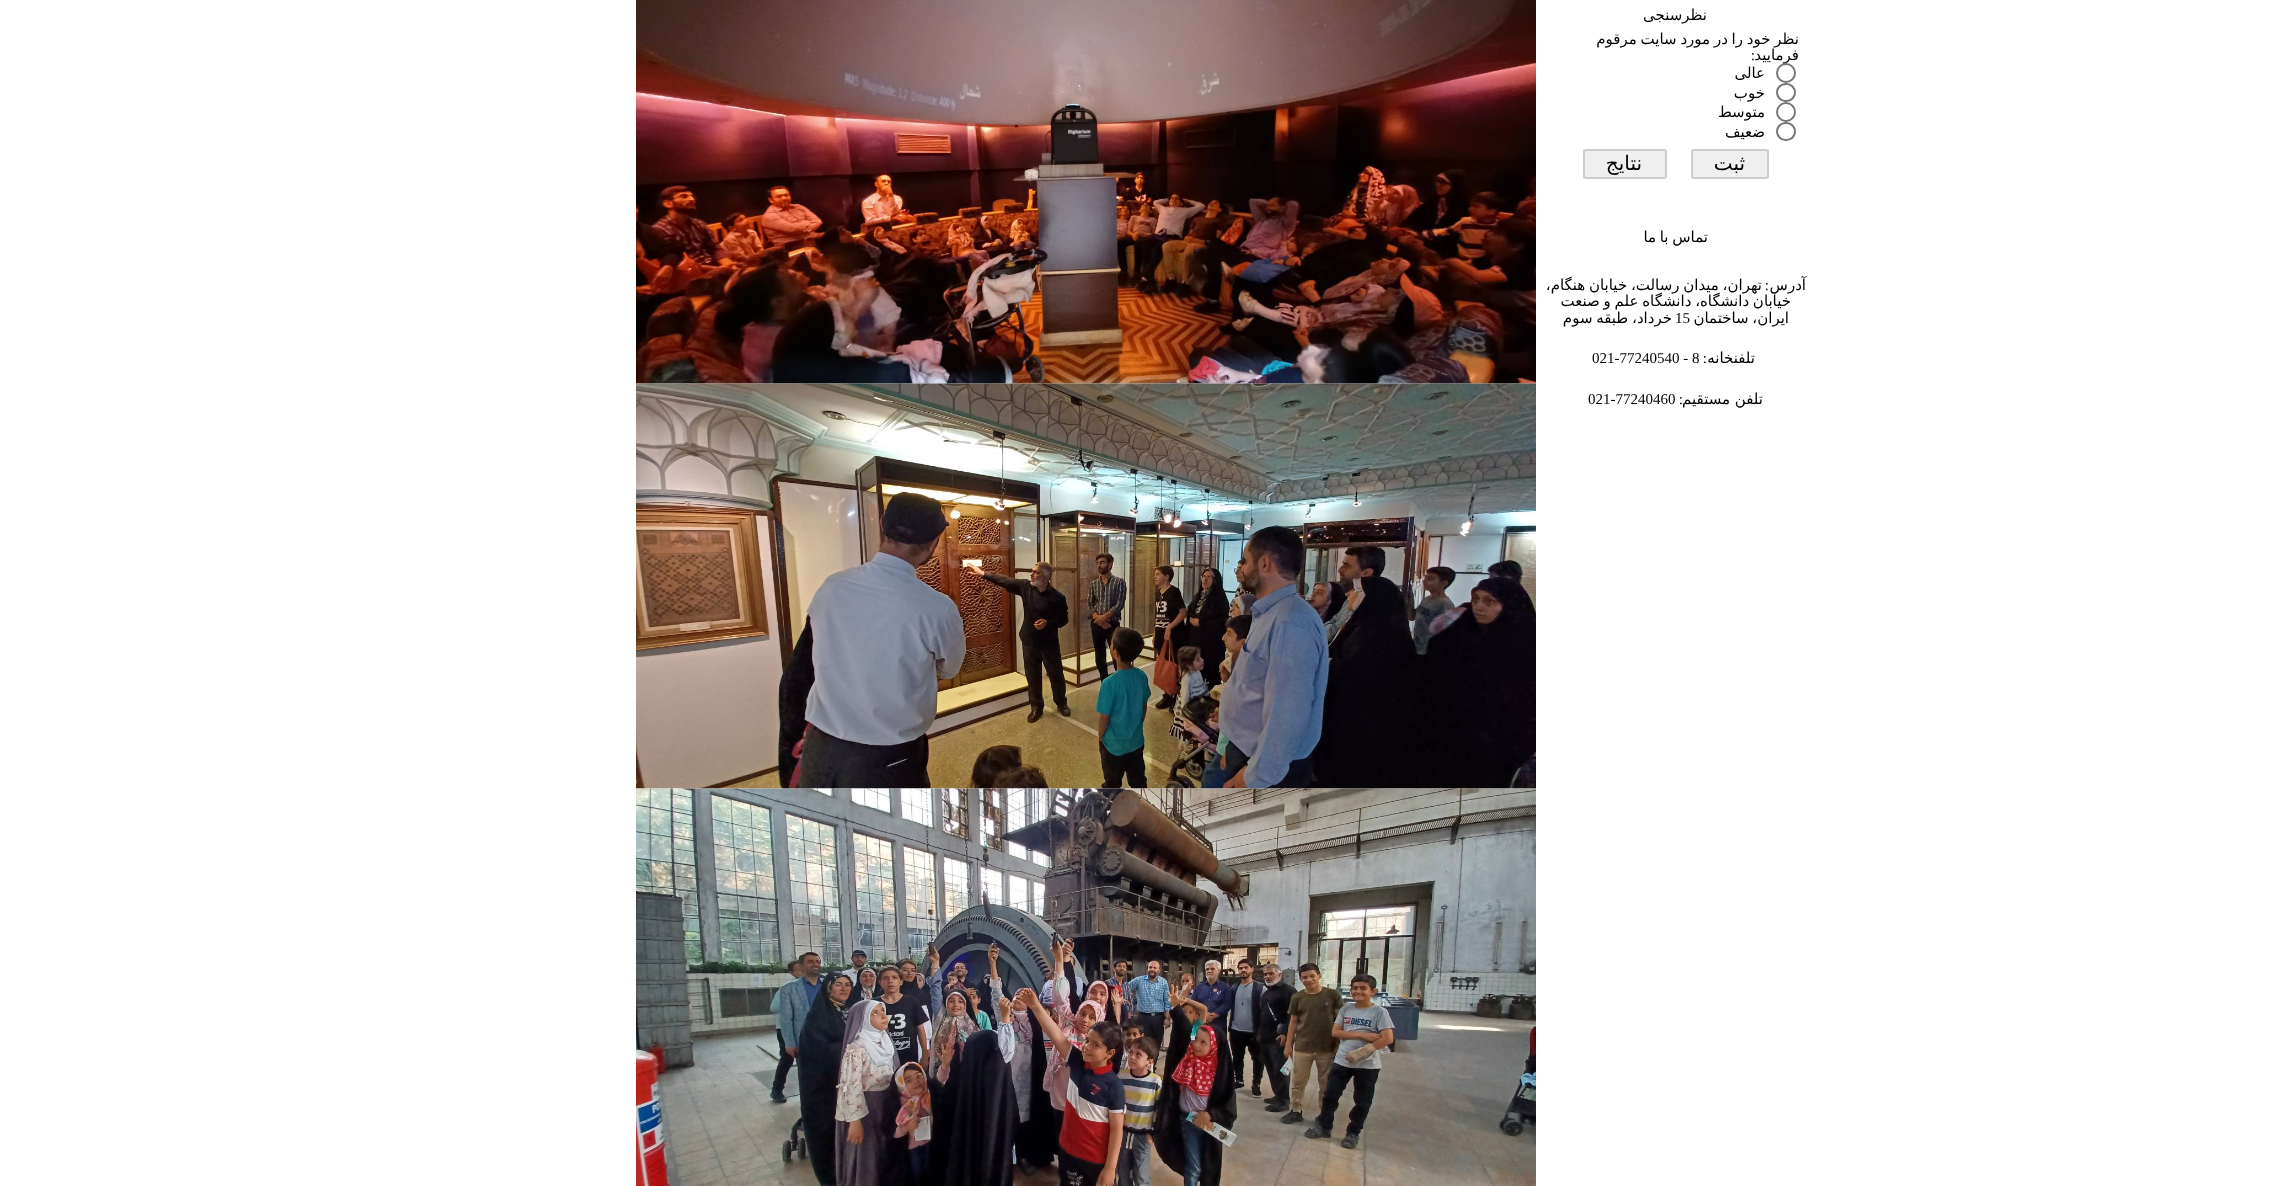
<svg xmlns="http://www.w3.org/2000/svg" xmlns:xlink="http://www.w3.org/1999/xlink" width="2291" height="1186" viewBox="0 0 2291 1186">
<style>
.cls-1{font:15px DejaVu Sans;direction:rtl;fill:#000000}
.cls-2{font:15px Liberation Serif;direction:rtl;fill:#000000}
.cls-3{font:20px DejaVu Sans;direction:rtl;fill:#000000}
.cls-4{font:15px Liberation Serif;fill:#000000}
</style>
<rect width="100%" height="100%" fill="#ffffff"/>
<rect fill="none" stroke="#767676" stroke-width="2" x="1777" y="84" width="18" height="17" rx="8.5"/>
<circle fill="none" stroke="#767676" stroke-width="2" cx="1786" cy="112" r="9"/>
<rect fill="none" stroke="#767676" stroke-width="2" x="1777" y="123" width="18" height="17" rx="8.5"/>
<rect fill="#efefef" stroke="#cccccc" stroke-width="2" x="1692" y="150" width="76" height="28" rx="2"/>
<rect fill="#efefef" stroke="#cccccc" stroke-width="2" x="1584" y="150" width="82" height="28" rx="2"/>
<image xlink:href="image0.png" x="636" y="0" width="900" height="384"/>
<image xlink:href="image1.png" x="636" y="383" width="900" height="406"/>
<image xlink:href="image2.png" x="636" y="788" width="900" height="398"/>
<text class="cls-1" x="1707" y="20">نظرسنجی</text>
<text class="cls-1"><tspan x="1799" y="44" word-spacing="-1">نظر خود را در مورد سایت مرقوم</tspan><tspan x="1799" y="60">فرمایید</tspan></text>
<text class="cls-2" x="1755" y="60">:</text>
<circle fill="#ffffff" stroke="#767676" stroke-width="2" cx="1786" cy="73" r="9"/>
<text class="cls-1"><tspan x="1765" y="78">عالی</tspan><tspan x="1765" y="98">خوب</tspan><tspan x="1765" y="117">متوسط</tspan><tspan x="1765" y="137">ضعیف</tspan></text>
<text class="cls-3" x="1745" y="170">ثبت</text>
<text class="cls-3" x="1642" y="170">نتایج</text>
<text class="cls-1" x="1708" y="242" word-spacing="-1">تماس با ما</text>
<text class="cls-1" x="1806" y="290">آدرس</text>
<text class="cls-2" x="1769" y="290">:</text>
<text class="cls-1" x="1762" y="290" word-spacing="-1">تهران، میدان رسالت، خیابان هنگام،</text>
<text class="cls-1" x="1791" y="306" word-spacing="-1">خیابان دانشگاه، دانشگاه علم و صنعت</text>
<text class="cls-1" x="1789" y="323" word-spacing="-1">ایران، ساختمان</text>
<text class="cls-4" x="1675" y="323">15</text>
<text class="cls-1" x="1672" y="323" word-spacing="-1">خرداد، طبقه سوم</text>
<text class="cls-1" x="1755" y="363">تلفنخانه</text>
<text class="cls-2" x="1707" y="363">:</text>
<text class="cls-4" x="1592" y="363">021-77240540 - 8</text>
<text class="cls-1" x="1763" y="404">تلفن مستقیم</text>
<text class="cls-2" x="1683" y="404">:</text>
<text class="cls-4" x="1588" y="404">021-77240460</text>
</svg>
